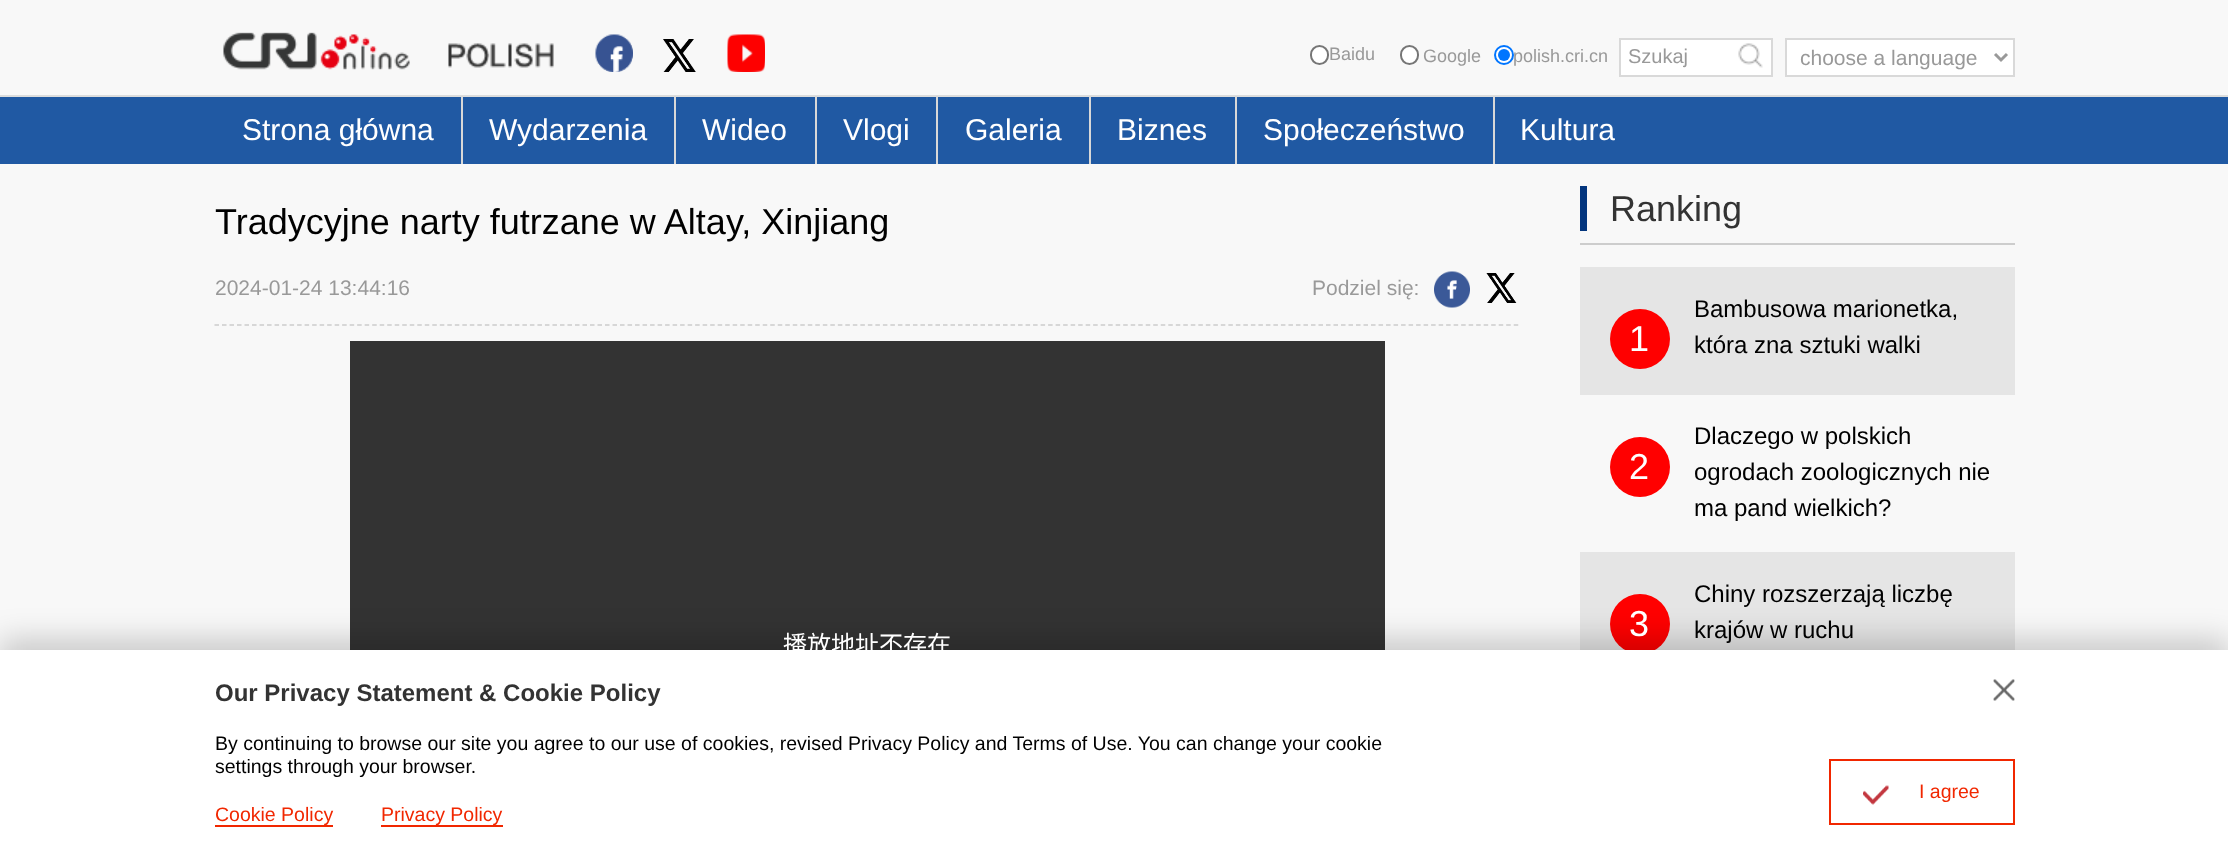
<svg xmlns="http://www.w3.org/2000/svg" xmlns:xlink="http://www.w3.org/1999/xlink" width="2228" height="855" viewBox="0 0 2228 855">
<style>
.cls-1{font:18px Liberation Sans;fill:#999999}
.cls-2{font:20px Liberation Sans;fill:#999999}
.cls-3{font:21px Liberation Sans;fill:#999999}
.cls-4{font:30px Liberation Sans;fill:#ffffff}
.cls-5{font:36px Liberation Sans;fill:#000000}
.cls-6{font:24px Noto Sans CJK SC;fill:#ffffff}
.cls-7{font:36px Liberation Sans;fill:#333333}
.cls-8{font:36px Liberation Sans;fill:#ffffff}
.cls-9{font:24px Liberation Sans;fill:#000000}
.cls-10{font:bold 24px Liberation Sans;fill:#333333}
.cls-11{font:19.5px Liberation Sans;fill:#000000}
.cls-12{font:19.5px Liberation Sans;fill:#f12700}
</style>
<rect width="100%" height="100%" fill="#f8f8f8"/>
<image xlink:href="image0.png" x="223" y="32" width="331" height="38"/>
<image xlink:href="image1.png" x="595" y="34" width="38" height="38"/>
<image xlink:href="image2.png" x="663" y="39" width="33" height="33"/>
<image xlink:href="image3.png" x="727" y="34" width="38" height="38"/>
<rect fill="#ffffff" stroke="#767676" stroke-width="2" x="1311" y="46" width="17" height="18" rx="8.5"/>
<rect fill="#ffffff" stroke="#767676" stroke-width="2" x="1401" y="46" width="17" height="18" rx="8.5"/>
<circle fill="#ffffff" stroke="#0075ff" stroke-width="2" cx="1504" cy="55" r="9"/>
<circle fill="#0075ff" cx="1504" cy="55" r="6"/>
<rect fill="#ffffff" stroke="#d9d9d9" stroke-width="2" x="1620" y="39" width="152" height="37"/>
<image xlink:href="image4.png" x="1738" y="43" width="25" height="25"/>
<rect fill="#ffffff" stroke="#d9d9d9" stroke-width="2" x="1786" y="39" width="228" height="37"/>
<path fill="none" stroke="#999999" stroke-width="3" d="M1995 54L2001 60L2007 54"/>
<rect fill="#2059a3" x="0" y="97" width="2228" height="67"/>
<rect fill="#dcdddd" x="0" y="95" width="2228" height="2"/>
<rect fill="#d8d8d8" x="461" y="96" width="2" height="68"/>
<rect fill="#d8d8d8" x="674" y="96" width="2" height="68"/>
<rect fill="#d8d8d8" x="815" y="96" width="2" height="68"/>
<rect fill="#d8d8d8" x="936" y="96" width="2" height="68"/>
<rect fill="#d8d8d8" x="1089" y="96" width="2" height="68"/>
<rect fill="#d8d8d8" x="1235" y="96" width="2" height="68"/>
<rect fill="#d8d8d8" x="1493" y="96" width="2" height="68"/>
<path fill="none" stroke="#cbcbcb" stroke-width="1.5" stroke-dasharray="4.5 3.01" d="M214.5 325H1519.5"/>
<image xlink:href="image5.png" x="1434" y="271" width="36" height="37"/>
<image xlink:href="image6.png" x="1486" y="273" width="31" height="30"/>
<rect fill="#333333" x="350" y="341" width="1035" height="309"/>
<rect fill="#cdcdcd" x="1580" y="243" width="435" height="2"/>
<rect fill="#03357d" x="1580" y="186" width="7" height="45"/>
<rect fill="#e5e5e5" x="1580" y="267" width="435" height="128"/>
<circle fill="#ff0000" cx="1640" cy="339" r="30"/>
<circle fill="#ff0000" cx="1640" cy="467" r="30"/>
<rect fill="#e5e5e5" x="1580" y="552" width="435" height="98"/>
<circle fill="#ff0000" cx="1640" cy="624" r="30"/>
<rect fill="#000000" fill-opacity="0.19" filter="blur(15px)" x="0" y="639" width="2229" height="206"/>
<rect fill="#ffffff" x="0" y="650" width="2228" height="205"/>
<image xlink:href="image7.png" x="1993" y="679" width="22" height="22"/>
<rect fill="none" stroke="#f12700" stroke-width="2" x="1830" y="760" width="184" height="64"/>
<image xlink:href="image8.png" x="1863" y="785" width="26" height="20"/>
<rect fill="#f12700" x="215" y="825" width="118" height="2"/>
<rect fill="#f12700" x="381" y="825" width="122" height="2"/>
<text class="cls-1" x="1329" y="60">Baidu</text>
<text class="cls-1" x="1423" y="62">Google</text>
<text class="cls-1" x="1513" y="62">polish.cri.cn</text>
<text class="cls-2" x="1628" y="63">Szukaj</text>
<text class="cls-3" x="1800" y="65">choose a language</text>
<text class="cls-4" x="242" y="140">Strona główna</text>
<text class="cls-4" x="489" y="140">Wydarzenia</text>
<text class="cls-4" x="702" y="140">Wideo</text>
<text class="cls-4" x="843" y="140">Vlogi</text>
<text class="cls-4" x="965" y="140">Galeria</text>
<text class="cls-4" x="1117" y="140">Biznes</text>
<text class="cls-4" x="1263" y="140">Społeczeństwo</text>
<text class="cls-4" x="1520" y="140">Kultura</text>
<text class="cls-5" x="215" y="234">Tradycyjne narty futrzane w Altay, Xinjiang</text>
<text class="cls-3" x="215" y="295">2024-01-24 13:44:16</text>
<text class="cls-3" x="1312" y="295">Podziel się:</text>
<text class="cls-6" x="783" y="653">播放地址不存在</text>
<text class="cls-7" x="1610" y="221">Ranking</text>
<text class="cls-8" x="1629" y="351">1</text>
<text class="cls-9"><tspan x="1694" y="317">Bambusowa marionetka,</tspan><tspan x="1694" y="353">która zna sztuki walki</tspan></text>
<text class="cls-8" x="1629" y="479">2</text>
<text class="cls-9"><tspan x="1694" y="444">Dlaczego w polskich</tspan><tspan x="1694" y="480">ogrodach zoologicznych nie</tspan><tspan x="1694" y="516">ma pand wielkich?</tspan></text>
<text class="cls-8" x="1629" y="636">3</text>
<text class="cls-9"><tspan x="1694" y="602">Chiny rozszerzają liczbę</tspan><tspan x="1694" y="638">krajów w ruchu</tspan></text>
<text class="cls-10" x="215" y="701">Our Privacy Statement &amp; Cookie Policy</text>
<text class="cls-11"><tspan x="215" y="750">By continuing to browse our site you agree to our use of cookies, revised Privacy Policy and Terms of Use. You can change your cookie</tspan><tspan x="215" y="773">settings through your browser.</tspan></text>
<text class="cls-12" x="1919" y="798">I agree</text>
<text class="cls-12" x="215" y="821">Cookie Policy</text>
<text class="cls-12" x="381" y="821">Privacy Policy</text>
</svg>
